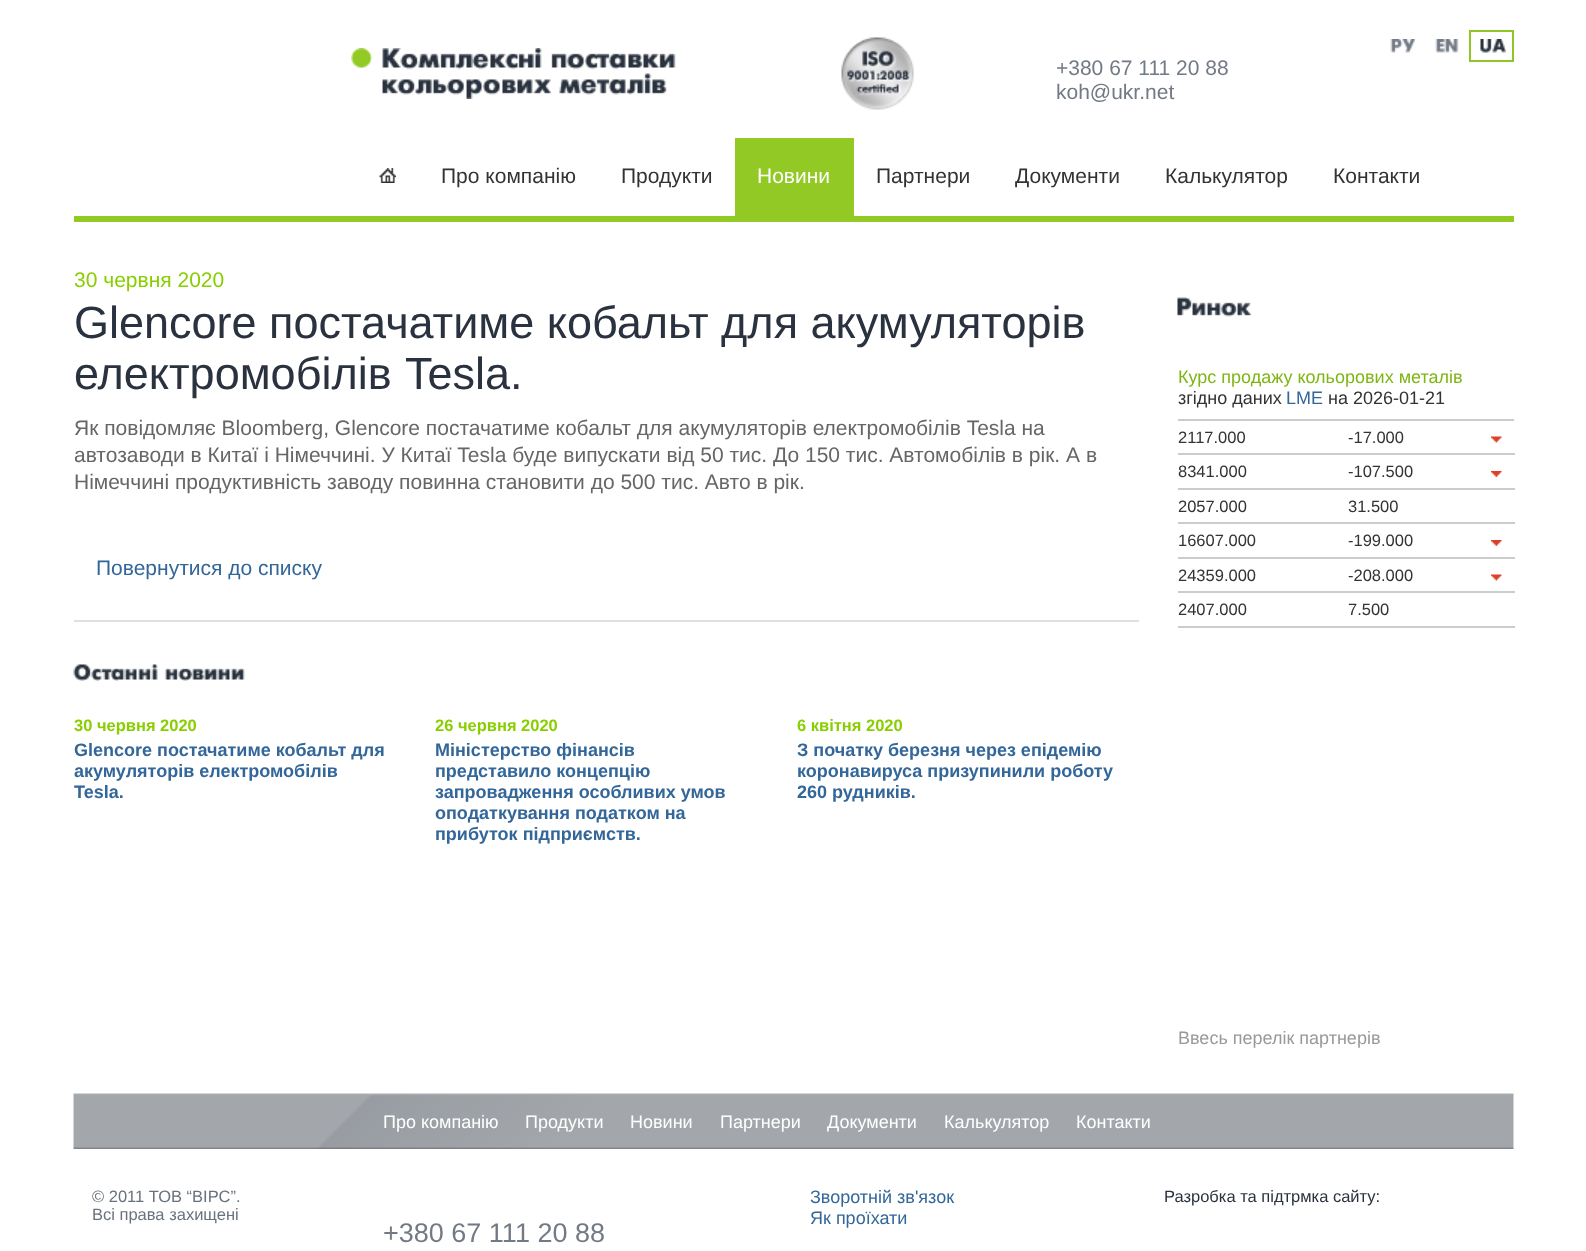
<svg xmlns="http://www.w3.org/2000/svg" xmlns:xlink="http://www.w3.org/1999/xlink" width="1586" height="1251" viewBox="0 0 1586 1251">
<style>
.cls-1{font:21px Liberation Sans;fill:#727a85}
.cls-2{font:21px Liberation Sans;fill:#333333}
.cls-3{font:21px Liberation Sans;fill:#ffffff}
.cls-4{font:21px Liberation Sans;fill:#89ce01}
.cls-5{font:45px Liberation Sans;fill:#29323e}
.cls-6{font:21px Liberation Sans;fill:#666666}
.cls-7{font:21px Liberation Sans;fill:#336699}
.cls-8{font:bold 16.5px Liberation Sans;fill:#89ce01}
.cls-9{font:bold 18px Liberation Sans;fill:#336699}
.cls-10{font:18px Liberation Sans;fill:#7fb515}
.cls-11{font:18px Liberation Sans;fill:#333333}
.cls-12{font:18px Liberation Sans;fill:#336699}
.cls-13{font:16.5px Liberation Sans;fill:#333333}
.cls-14{font:18px Liberation Sans;fill:#999999}
.cls-15{font:18px Liberation Sans;fill:#ffffff}
.cls-16{font:16.5px Liberation Sans;fill:#69727d}
.cls-17{font:16.5px Liberation Sans;fill:#29323e}
.cls-18{font:27px Liberation Sans;fill:#727a85}
</style>
<rect width="100%" height="100%" fill="#ffffff"/>
<image xlink:href="image0.png" x="351" y="48" width="325" height="51"/>
<image xlink:href="image1.png" x="841" y="37" width="73" height="73"/>
<image xlink:href="image2.png" x="1390" y="39" width="26" height="14"/>
<image xlink:href="image3.png" x="1435" y="39" width="24" height="14"/>
<rect fill="none" stroke="#8fc524" stroke-width="2" x="1470" y="31" width="43" height="30"/>
<image xlink:href="image4.png" x="1480" y="39" width="26" height="14"/>
<image xlink:href="image5.png" x="379" y="168" width="17" height="15"/>
<rect fill="#92c925" x="735" y="138" width="119" height="78"/>
<rect fill="#92c925" x="74" y="216" width="1440" height="6"/>
<rect fill="#e0e0e0" x="74" y="620" width="1065" height="2"/>
<image xlink:href="image6.png" x="73" y="664" width="172" height="17"/>
<image xlink:href="image7.png" x="1177" y="297" width="74" height="20"/>
<rect fill="#cccccc" x="1178" y="419" width="336" height="2"/>
<rect fill="#cccccc" x="1178" y="453" width="337" height="2"/>
<image xlink:href="image8.png" x="1491" y="436" width="11" height="7"/>
<rect fill="#cccccc" x="1178" y="488" width="337" height="2"/>
<image xlink:href="image9.png" x="1491" y="471" width="11" height="6"/>
<rect fill="#cccccc" x="1178" y="522" width="337" height="2"/>
<rect fill="#cccccc" x="1178" y="557" width="337" height="2"/>
<image xlink:href="image9.png" x="1491" y="540" width="11" height="6"/>
<rect fill="#cccccc" x="1178" y="591" width="337" height="2"/>
<image xlink:href="image8.png" x="1491" y="574" width="11" height="7"/>
<rect fill="#cccccc" x="1178" y="626" width="337" height="2"/>
<image xlink:href="image10.png" x="73" y="1093" width="1441" height="56"/>
<text class="cls-1"><tspan x="1056" y="75">+380 67 111 20 88</tspan><tspan x="1056" y="99">koh@ukr.net</tspan></text>
<text class="cls-2" x="441" y="183">Про компанію</text>
<text class="cls-2" x="621" y="183">Продукти</text>
<text class="cls-3" x="757" y="183">Новини</text>
<text class="cls-2" x="876" y="183">Партнери</text>
<text class="cls-2" x="1015" y="183">Документи</text>
<text class="cls-2" x="1165" y="183">Калькулятор</text>
<text class="cls-2" x="1333" y="183">Контакти</text>
<text class="cls-4" x="74" y="287">30 червня 2020</text>
<text class="cls-5"><tspan x="74" y="338">Glencore постачатиме кобальт для акумуляторів</tspan><tspan x="74" y="389" word-spacing="1">електромобілів Tesla.</tspan></text>
<text class="cls-6"><tspan x="74" y="435">Як повідомляє Bloomberg, Glencore постачатиме кобальт для акумуляторів електромобілів Tesla на</tspan><tspan x="74" y="462">автозаводи в Китаї і Німеччині. У Китаї Tesla буде випускати від 50 тис. До 150 тис. Автомобілів в рік. А в</tspan><tspan x="74" y="489">Німеччині продуктивність заводу повинна становити до 500 тис. Авто в рік.</tspan></text>
<text class="cls-7" x="96" y="575">Повернутися до списку</text>
<text class="cls-8" x="74" y="731">30 червня 2020</text>
<text class="cls-9"><tspan x="74" y="756">Glencore постачатиме кобальт для</tspan><tspan x="74" y="777">акумуляторів електромобілів</tspan><tspan x="74" y="798">Tesla.</tspan></text>
<text class="cls-8" x="435" y="731">26 червня 2020</text>
<text class="cls-9"><tspan x="435" y="756">Міністерство фінансів</tspan><tspan x="435" y="777">представило концепцію</tspan><tspan x="435" y="798">запровадження особливих умов</tspan><tspan x="435" y="819">оподаткування податком на</tspan><tspan x="435" y="840">прибуток підприємств.</tspan></text>
<text class="cls-8" x="797" y="731">6 квітня 2020</text>
<text class="cls-9"><tspan x="797" y="756">З початку березня через епідемію</tspan><tspan x="797" y="777">коронавируса призупинили роботу</tspan><tspan x="797" y="798">260 рудників.</tspan></text>
<text class="cls-10" x="1178" y="383">Курс продажу кольорових металів</text>
<text class="cls-11" x="1178" y="404">згідно даних</text>
<text class="cls-12" x="1286" y="404">LME</text>
<text class="cls-11" x="1328" y="404">на 2026-01-21</text>
<text class="cls-13" x="1178" y="443">2117.000</text>
<text class="cls-13" x="1348" y="443">-17.000</text>
<text class="cls-13" x="1178" y="477">8341.000</text>
<text class="cls-13" x="1348" y="477">-107.500</text>
<text class="cls-13" x="1178" y="512">2057.000</text>
<text class="cls-13" x="1348" y="512">31.500</text>
<text class="cls-13" x="1178" y="546">16607.000</text>
<text class="cls-13" x="1348" y="546">-199.000</text>
<text class="cls-13" x="1178" y="581">24359.000</text>
<text class="cls-13" x="1348" y="581">-208.000</text>
<text class="cls-13" x="1178" y="615">2407.000</text>
<text class="cls-13" x="1348" y="615">7.500</text>
<text class="cls-14" x="1178" y="1044">Ввесь перелік партнерів</text>
<text class="cls-15" x="383" y="1128">Про компанію</text>
<text class="cls-15" x="525" y="1128">Продукти</text>
<text class="cls-15" x="630" y="1128">Новини</text>
<text class="cls-15" x="720" y="1128">Партнери</text>
<text class="cls-15" x="827" y="1128">Документи</text>
<text class="cls-15" x="944" y="1128">Калькулятор</text>
<text class="cls-15" x="1076" y="1128">Контакти</text>
<text class="cls-16"><tspan x="92" y="1202">© 2011 ТОВ “ВІРС”.</tspan><tspan x="92" y="1220">Всі права захищені</tspan></text>
<text class="cls-12"><tspan x="810" y="1203">Зворотній зв'язок</tspan><tspan x="810" y="1224">Як проїхати</tspan></text>
<text class="cls-17" x="1164" y="1202">Разробка та підтрмка сайту:</text>
<text class="cls-18" x="383" y="1242">+380 67 111 20 88</text>
</svg>
